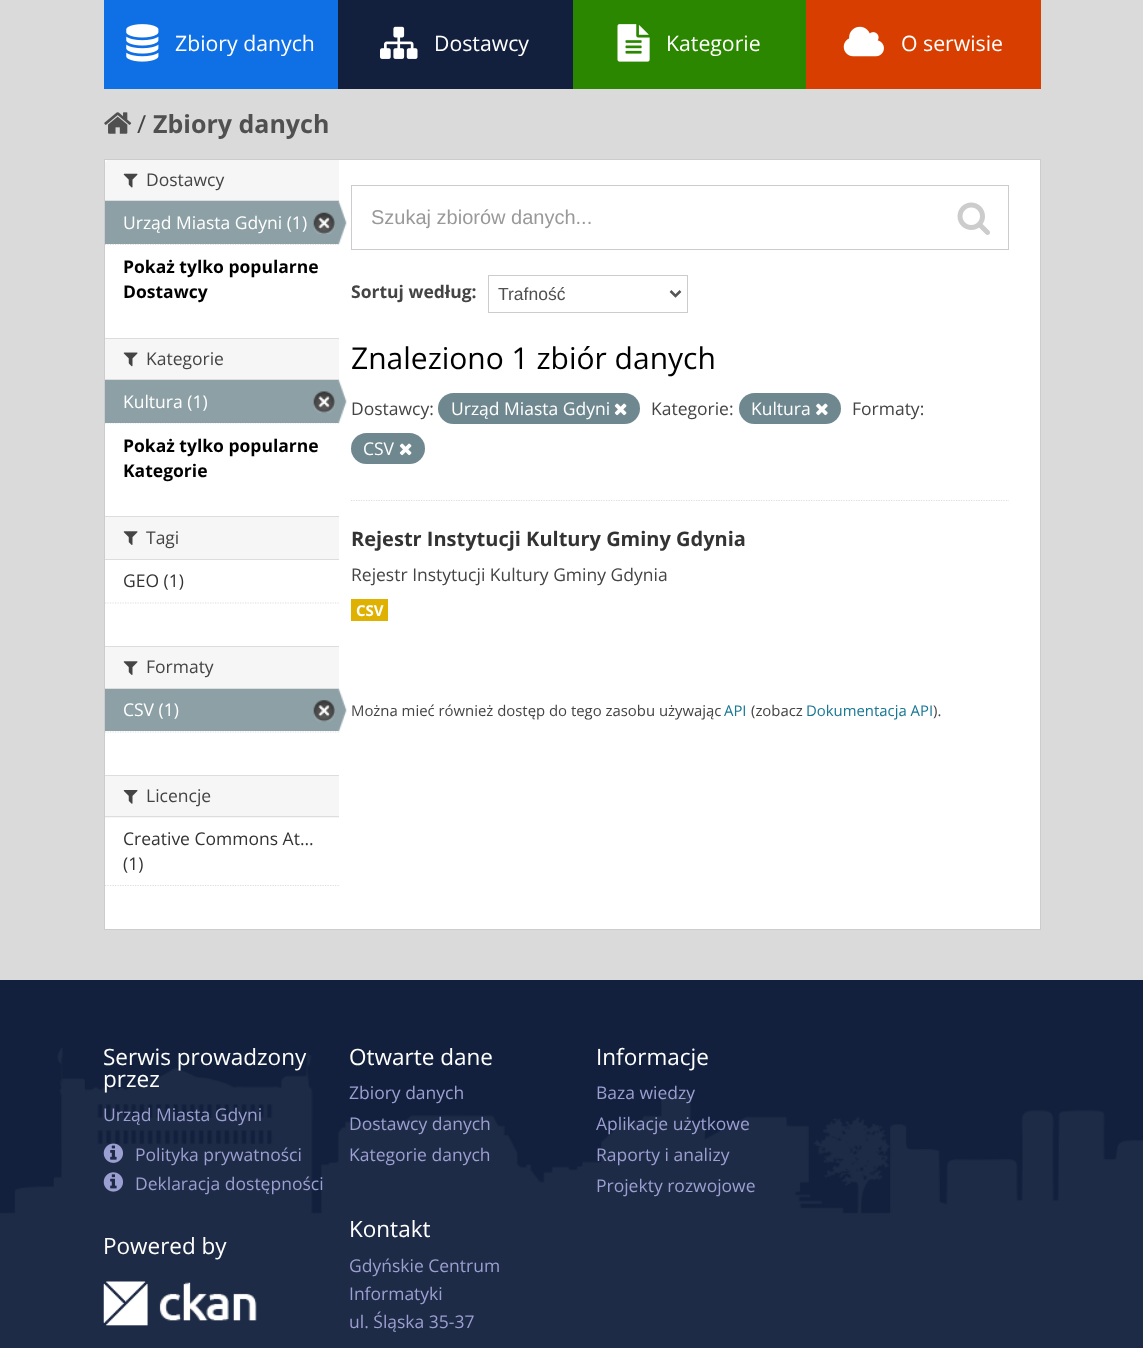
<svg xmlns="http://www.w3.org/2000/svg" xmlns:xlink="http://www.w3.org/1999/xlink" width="1143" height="1348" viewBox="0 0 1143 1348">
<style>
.cls-1{font:21.25px Open Sans;fill:#ffffff}
.cls-2{font:25px Open Sans;fill:#444444}
.cls-3{font:bold 25px Open Sans;fill:#505050}
.cls-4{font:17.5px Open Sans;fill:#444444}
.cls-5{font:17.5px Open Sans;fill:#ffffff}
.cls-6{font:bold 17.5px Open Sans;fill:#000000}
.cls-7{font:17.5px Open Sans;fill:#333333}
.cls-8{font:20px Liberation Sans;fill:#999999}
.cls-9{font:bold 17.5px Open Sans;fill:#444444}
.cls-10{font:17.5px Liberation Sans;fill:#505050}
.cls-11{font:30px Open Sans;fill:#000000}
.cls-12{font:bold 20px Open Sans;fill:#333333}
.cls-13{font:bold 15px Open Sans;fill:#ffffff}
.cls-14{font:14.9px Open Sans;fill:#444444}
.cls-15{font:14.9px Open Sans;fill:#187794}
.cls-16{font:22.5px Open Sans;fill:#ffffff}
.cls-17{font:17.5px Open Sans;fill:#9c9fd1}
</style>
<rect width="100%" height="100%" fill="#dadada"/>
<rect fill="#0f6fe4" x="104" y="0" width="234" height="89"/>
<image xlink:href="image0.png" x="126" y="24" width="33" height="38"/>
<rect fill="#12203d" x="338" y="0" width="235" height="89"/>
<image xlink:href="image1.png" x="380" y="26" width="38" height="33"/>
<rect fill="#2c8700" x="573" y="0" width="233" height="89"/>
<image xlink:href="image2.png" x="617" y="24" width="33" height="38"/>
<rect fill="#d83e00" x="806" y="0" width="235" height="89"/>
<image xlink:href="image3.png" x="843" y="26" width="41" height="31"/>
<image xlink:href="image4.png" x="104" y="112" width="28" height="22"/>
<rect fill="#ffffff" stroke="#cccccc" x="104.5" y="159.5" width="936" height="770"/>
<path fill="#f6f6f6" d="M109 160H339V201H105V164C105 162 107 160 109 160Z"/>
<rect fill="#dddddd" x="105" y="200" width="234" height="1"/>
<image xlink:href="image5.png" x="123" y="173" width="15" height="15"/>
<path fill="none" stroke="#dddddd" stroke-width="1.2" stroke-dasharray="1.25 1.25" d="M105 244.5H339"/>
<rect fill="#8ca0a6" x="105" y="201" width="234" height="43"/>
<image xlink:href="image6.png" x="313" y="212" width="22" height="22"/>
<image xlink:href="image7.png" x="338" y="201" width="9" height="43"/>
<rect fill="#f6f6f6" x="105" y="339" width="234" height="40"/>
<rect fill="#dddddd" x="105" y="338" width="234" height="1"/>
<rect fill="#dddddd" x="105" y="379" width="234" height="1"/>
<image xlink:href="image8.png" x="123" y="352" width="15" height="15"/>
<path fill="none" stroke="#dddddd" stroke-width="1.2" stroke-dasharray="1.25 1.25" d="M105 423H339"/>
<rect fill="#8ca0a6" x="105" y="380" width="234" height="43"/>
<image xlink:href="image9.png" x="313" y="391" width="22" height="22"/>
<image xlink:href="image10.png" x="338" y="380" width="9" height="43"/>
<rect fill="#f6f6f6" x="105" y="517" width="234" height="42"/>
<rect fill="#dddddd" x="105" y="516" width="234" height="1"/>
<rect fill="#dddddd" x="105" y="559" width="234" height="1"/>
<image xlink:href="image11.png" x="123" y="531" width="15" height="14"/>
<path fill="none" stroke="#dddddd" stroke-width="1.2" stroke-dasharray="1.25 1.25" d="M105 603H339"/>
<rect fill="#f6f6f6" x="105" y="647" width="234" height="41"/>
<rect fill="#dddddd" x="105" y="646" width="234" height="1"/>
<rect fill="#dddddd" x="105" y="688" width="234" height="1"/>
<image xlink:href="image11.png" x="123" y="661" width="15" height="14"/>
<rect fill="#8ca0a6" x="105" y="689" width="234" height="42"/>
<image xlink:href="image12.png" x="313" y="700" width="22" height="22"/>
<path fill="none" stroke="#dddddd" stroke-width="1.2" stroke-dasharray="1.25 1.25" d="M105 732H339"/>
<image xlink:href="image13.png" x="338" y="689" width="9" height="43"/>
<rect fill="#f6f6f6" x="105" y="776" width="234" height="42"/>
<rect fill="#dddddd" x="105" y="775" width="234" height="1"/>
<rect fill="#dddddd" x="105" y="816" width="234" height="1"/>
<image xlink:href="image14.png" x="123" y="790" width="15" height="14"/>
<path fill="none" stroke="#dddddd" stroke-width="1.2" stroke-dasharray="1.25 1.25" d="M105 885.5H339"/>
<path fill="none" stroke="#dddddd" stroke-width="1.2" stroke-dasharray="1.25 1.25" d="M351 500.5H1009"/>
<rect fill="none" stroke="#cccccc" x="351.5" y="185.5" width="657" height="64"/>
<image xlink:href="image15.png" x="957" y="202" width="33" height="33"/>
<rect fill="none" stroke="#cccccc" x="488.5" y="275.5" width="199" height="37"/>
<path fill="none" stroke="#555555" stroke-width="2.5" d="M670.5 291L675.5 296L680.5 291"/>
<rect fill="#6f8890" x="438" y="393" width="202" height="31" rx="15.5"/>
<image xlink:href="image16.png" x="614" y="403" width="13" height="13"/>
<rect fill="#6f8890" x="739" y="393" width="102" height="31" rx="15.5"/>
<image xlink:href="image17.png" x="816" y="403" width="12" height="13"/>
<rect fill="#6f8890" x="351" y="433" width="74" height="31" rx="15.5"/>
<image xlink:href="image16.png" x="399" y="443" width="13" height="13"/>
<rect fill="#dfb100" x="351" y="599" width="37" height="22"/>
<rect fill="#12203d" x="0" y="980" width="1143" height="368"/>
<image xlink:href="image21.png" x="0" y="1048" width="1143" height="300"/>
<image xlink:href="image18.png" x="103" y="1143" width="20" height="20"/>
<image xlink:href="image19.png" x="103" y="1172" width="20" height="20"/>
<image xlink:href="image20.png" x="103" y="1281" width="154" height="45"/>
<text class="cls-1" x="175" y="51">Zbiory danych</text>
<text class="cls-1" x="434" y="51">Dostawcy</text>
<text class="cls-1" x="666" y="51">Kategorie</text>
<text class="cls-1" x="901" y="51">O serwisie</text>
<text class="cls-2" x="137" y="133">/</text>
<text class="cls-3" x="153" y="133">Zbiory danych</text>
<text class="cls-4" x="146" y="186">Dostawcy</text>
<text class="cls-5" x="123" y="229">Urząd Miasta Gdyni (1)</text>
<text class="cls-6"><tspan x="123" y="273">Pokaż tylko popularne</tspan><tspan x="123" y="298">Dostawcy</tspan></text>
<text class="cls-4" x="146" y="365">Kategorie</text>
<text class="cls-5" x="123" y="408">Kultura (1)</text>
<text class="cls-6"><tspan x="123" y="452">Pokaż tylko popularne</tspan><tspan x="123" y="477">Kategorie</tspan></text>
<text class="cls-4" x="146" y="544">Tagi</text>
<text class="cls-7" x="123" y="587">GEO (1)</text>
<text class="cls-4" x="146" y="673">Formaty</text>
<text class="cls-5" x="123" y="716">CSV (1)</text>
<text class="cls-4" x="146" y="802">Licencje</text>
<text class="cls-7"><tspan x="123" y="845">Creative Commons At...</tspan><tspan x="123" y="870">(1)</tspan></text>
<text class="cls-8" x="371" y="224">Szukaj zbiorów danych...</text>
<text class="cls-9" x="351" y="298">Sortuj według:</text>
<text class="cls-10" x="498" y="300">Trafność</text>
<text class="cls-11" x="351" y="369">Znaleziono 1 zbiór danych</text>
<text class="cls-4" x="351" y="415">Dostawcy:</text>
<text class="cls-5" x="451" y="415">Urząd Miasta Gdyni</text>
<text class="cls-4" x="651" y="415">Kategorie:</text>
<text class="cls-5" x="751" y="415">Kultura</text>
<text class="cls-4" x="852" y="415">Formaty:</text>
<text class="cls-5" x="363" y="455">CSV</text>
<text class="cls-12" x="351" y="546">Rejestr Instytucji Kultury Gminy Gdynia</text>
<text class="cls-4" x="351" y="581">Rejestr Instytucji Kultury Gminy Gdynia</text>
<text class="cls-13" x="356" y="616">CSV</text>
<text class="cls-14" x="351" y="716">Można mieć również dostęp do tego zasobu używając</text>
<text class="cls-15" x="724" y="716">API</text>
<text class="cls-14" x="751" y="716">(zobacz</text>
<text class="cls-15" x="806" y="716">Dokumentacja API</text>
<text class="cls-14" x="933" y="716">).</text>
<text class="cls-16"><tspan x="103" y="1065">Serwis prowadzony</tspan><tspan x="103" y="1087">przez</tspan></text>
<text class="cls-17" x="103" y="1121">Urząd Miasta Gdyni</text>
<text class="cls-17"><tspan x="135" y="1161">Polityka prywatności</tspan><tspan x="135" y="1190">Deklaracja dostępności</tspan></text>
<text class="cls-16" x="103" y="1254">Powered by</text>
<text class="cls-16" x="349" y="1065">Otwarte dane</text>
<text class="cls-17"><tspan x="349" y="1099">Zbiory danych</tspan><tspan x="349" y="1130">Dostawcy danych</tspan><tspan x="349" y="1161">Kategorie danych</tspan></text>
<text class="cls-16" x="596" y="1065">Informacje</text>
<text class="cls-17"><tspan x="596" y="1099">Baza wiedzy</tspan><tspan x="596" y="1130">Aplikacje użytkowe</tspan><tspan x="596" y="1161">Raporty i analizy</tspan><tspan x="596" y="1192">Projekty rozwojowe</tspan></text>
<text class="cls-16" x="349" y="1237">Kontakt</text>
<text class="cls-17"><tspan x="349" y="1272">Gdyńskie Centrum</tspan><tspan x="349" y="1300">Informatyki</tspan><tspan x="349" y="1328">ul. Śląska 35-37</tspan></text>
</svg>
